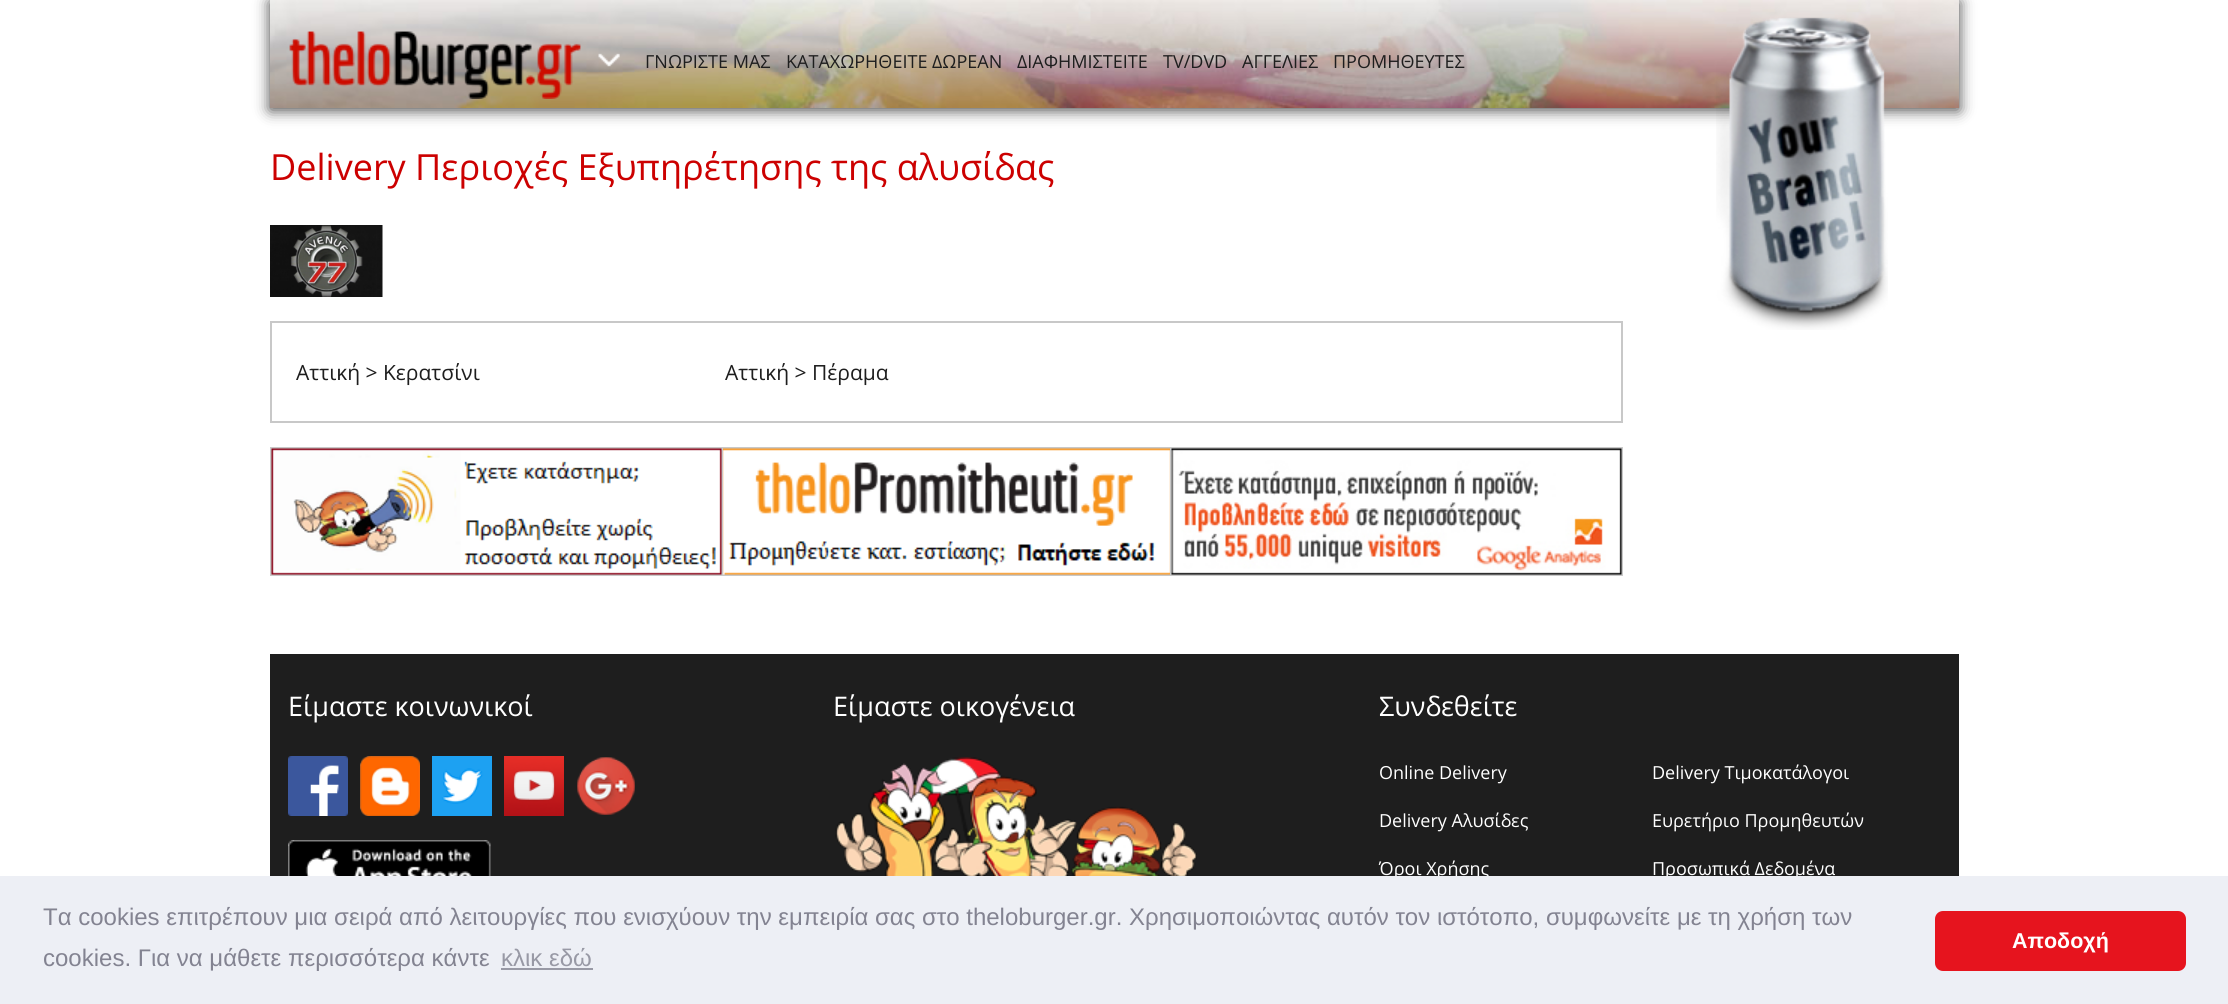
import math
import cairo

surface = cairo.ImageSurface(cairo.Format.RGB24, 2228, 1004)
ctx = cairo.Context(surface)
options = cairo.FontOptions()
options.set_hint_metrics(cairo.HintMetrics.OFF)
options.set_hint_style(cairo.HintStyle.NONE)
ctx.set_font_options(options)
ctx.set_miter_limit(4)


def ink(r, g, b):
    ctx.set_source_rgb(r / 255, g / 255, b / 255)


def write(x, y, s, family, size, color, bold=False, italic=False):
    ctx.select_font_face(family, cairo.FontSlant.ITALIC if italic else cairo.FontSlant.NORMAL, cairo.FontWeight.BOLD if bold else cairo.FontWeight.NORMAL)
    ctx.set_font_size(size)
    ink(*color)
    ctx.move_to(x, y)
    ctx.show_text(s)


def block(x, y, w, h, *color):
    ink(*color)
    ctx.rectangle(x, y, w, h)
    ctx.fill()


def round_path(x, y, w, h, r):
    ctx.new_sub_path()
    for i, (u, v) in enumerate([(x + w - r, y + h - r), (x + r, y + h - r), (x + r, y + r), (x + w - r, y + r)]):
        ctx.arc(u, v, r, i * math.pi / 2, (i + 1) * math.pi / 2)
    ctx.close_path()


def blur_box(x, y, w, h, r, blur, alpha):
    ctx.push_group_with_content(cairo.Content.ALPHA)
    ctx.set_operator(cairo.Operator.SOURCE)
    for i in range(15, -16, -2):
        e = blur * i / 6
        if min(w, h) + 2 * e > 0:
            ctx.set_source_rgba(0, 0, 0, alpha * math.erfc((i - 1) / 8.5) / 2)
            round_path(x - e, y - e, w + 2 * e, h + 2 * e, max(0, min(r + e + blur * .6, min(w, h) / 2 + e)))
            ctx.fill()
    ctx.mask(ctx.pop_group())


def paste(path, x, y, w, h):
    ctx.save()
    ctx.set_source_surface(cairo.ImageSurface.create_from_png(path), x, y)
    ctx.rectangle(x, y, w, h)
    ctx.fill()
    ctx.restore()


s1 = dict(family="Open Sans", size=18, color=(30, 30, 30))
s2 = dict(family="Open Sans", size=36, color=(204, 0, 0))
s3 = dict(family="Open Sans", size=21, color=(30, 30, 30))
s4 = dict(family="Open Sans", size=27, color=(255, 255, 255))
s5 = dict(family="Open Sans", size=18, color=(255, 255, 255))
s6 = dict(family="Liberation Sans", size=24, color=(131, 131, 145))
s7 = dict(family="Liberation Sans", size=24, color=(152, 153, 165))
s8 = dict(family="Liberation Sans", size=21.5, color=(255, 255, 255), bold=True)

ink(255, 255, 255)
ctx.paint()
ink(0, 0, 0)
blur_box(270, 2, 1689, 108, 0, 7.5, 0.75)
paste("pic1.png", 270, 0, 1689, 108)
paste("pic2.png", 289, 31, 292, 68)
paste("pic3.png", 598, 53, 22, 14)
write(645, 68, "ΓΝΩΡΙΣΤΕ ΜΑΣ", **s1)
write(786, 68, "ΚΑΤΑΧΩΡΗΘΕΙΤΕ ΔΩΡΕΑΝ", **s1)
write(1017, 68, "ΔΙΑΦΗΜΙΣΤΕΙΤΕ", **s1)
write(1163, 68, "TV/DVD", **s1)
write(1242, 68, "ΑΓΓΕΛΙΕΣ", **s1)
write(1333, 68, "ΠΡΟΜΗΘΕΥΤΕΣ", **s1)
paste("pic4.png", 1716, 17, 172, 313)
write(270, 180, "Delivery Περιοχές Εξυπηρέτησης της αλυσίδας", **s2)
paste("pic5.png", 270, 225, 113, 72)
ctx.rectangle(271, 322, 1351, 100)
ink(200, 200, 200)
ctx.stroke()
write(296, 380, "Αττική > Κερατσίνι", **s3)
write(725, 380, "Αττική > Πέραμα", **s3)
ctx.rectangle(721, 448, 451, 127)
ink(200, 200, 200)
ctx.stroke()
ctx.rectangle(271, 448, 451, 127)
ctx.stroke()
paste("pic6.png", 271, 448, 451, 127)
ctx.rectangle(1171, 448, 451, 127)
ctx.stroke()
paste("pic7.png", 1171, 448, 451, 127)
paste("pic8.png", 723, 448, 447, 127)
block(270, 654, 1689, 222, 30, 30, 30)
write(288, 716, "Είμαστε κοινωνικοί", **s4)
paste("pic9.png", 288, 756, 60, 60)
paste("pic10.png", 360, 756, 60, 60)
paste("pic11.png", 432, 756, 60, 60)
paste("pic12.png", 504, 756, 60, 60)
paste("pic13.png", 577, 757, 58, 58)
paste("pic14.png", 288, 840, 203, 36)
write(833, 716, "Είμαστε οικογένεια", **s4)
paste("pic15.png", 835, 757, 362, 119)
write(1379, 716, "Συνδεθείτε", **s4)
write(1379, 779, "Online Delivery", **s5)
write(1652, 779, "Delivery Τιμοκατάλογοι", **s5)
write(1379, 827, "Delivery Αλυσίδες", **s5)
write(1652, 827, "Ευρετήριο Προμηθευτών", **s5)
write(1379, 875, "Όροι Χρήσης", **s5)
write(1652, 875, "Προσωπικά Δεδομένα", **s5)
block(0, 876, 2228, 128, 237, 239, 245)
write(43, 925, "Τα cookies επιτρέπουν μια σειρά από λειτουργίες που ενισχύουν την εμπειρία σας στο theloburger.gr. Χρησιμοποιώντας αυτόν τον ιστότοπο, συμφωνείτε με τη χρήση των", **s6)
write(43, 966, "cookies. Για να μάθετε περισσότερα κάντε", **s6)
write(501, 966, "κλικ εδώ", **s7)
block(501, 968, 92, 2, 152, 153, 165)
ink(230, 20, 30)
round_path(1935, 911, 251, 60, 8)
ctx.fill()
write(2012, 948, "Αποδοχή", **s8)
surface.write_to_png("screenshot.png")
